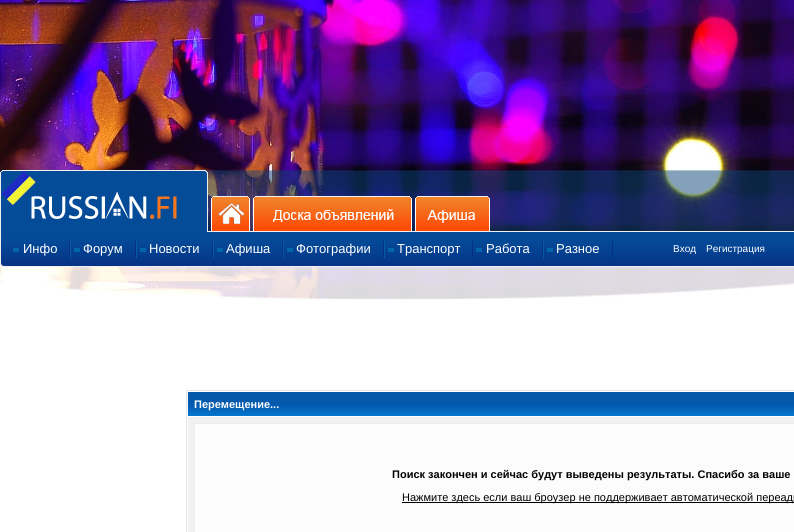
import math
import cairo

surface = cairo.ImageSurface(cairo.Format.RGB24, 794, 532)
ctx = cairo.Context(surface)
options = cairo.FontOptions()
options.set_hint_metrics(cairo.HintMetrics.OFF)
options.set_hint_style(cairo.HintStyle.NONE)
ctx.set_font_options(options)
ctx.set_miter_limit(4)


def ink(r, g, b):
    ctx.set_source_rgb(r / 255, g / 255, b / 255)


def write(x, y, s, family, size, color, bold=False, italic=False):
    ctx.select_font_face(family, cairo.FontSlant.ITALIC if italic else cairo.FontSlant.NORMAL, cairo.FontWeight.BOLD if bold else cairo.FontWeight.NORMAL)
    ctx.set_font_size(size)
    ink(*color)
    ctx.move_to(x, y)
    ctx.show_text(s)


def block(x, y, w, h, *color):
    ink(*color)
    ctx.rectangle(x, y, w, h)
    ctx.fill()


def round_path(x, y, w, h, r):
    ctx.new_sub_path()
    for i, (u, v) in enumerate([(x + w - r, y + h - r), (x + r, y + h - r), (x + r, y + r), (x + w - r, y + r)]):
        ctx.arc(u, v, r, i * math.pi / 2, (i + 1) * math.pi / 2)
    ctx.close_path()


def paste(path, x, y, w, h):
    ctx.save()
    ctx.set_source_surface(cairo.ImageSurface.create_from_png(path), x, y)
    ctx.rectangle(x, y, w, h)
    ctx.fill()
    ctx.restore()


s1 = dict(family="Liberation Sans", size=13, color=(255, 255, 255))
s2 = dict(family="Liberation Sans", size=10, color=(255, 255, 255))
s3 = dict(family="Liberation Sans", size=11, color=(255, 255, 255), bold=True)
s4 = dict(family="Liberation Sans", size=11, color=(0, 0, 0), bold=True)
s5 = dict(family="Liberation Sans", size=11, color=(0, 0, 0))

ink(255, 255, 255)
ctx.paint()
paste("pic1.png", 0, 0, 794, 300)
paste("pic2.png", 0, 170, 208, 61)
paste("pic3.png", 211, 196, 39, 35)
paste("pic4.png", 253, 196, 159, 35)
paste("pic5.png", 415, 196, 75, 35)
paste("pic6.png", 0, 231, 794, 36)
block(13, 248, 6, 4, 1, 101, 172)
block(69, 241, 1, 17, 7, 46, 130)
write(23, 253, "Инфо", **s1)
block(74, 248, 6, 4, 1, 101, 172)
block(135, 241, 1, 17, 7, 46, 130)
block(70, 241, 1, 17, 2, 93, 166)
write(83, 253, "Форум", **s1)
block(140, 248, 6, 4, 1, 101, 172)
block(212, 241, 1, 17, 7, 46, 130)
block(136, 241, 1, 17, 2, 93, 166)
write(149, 253, "Новости", **s1)
block(217, 248, 6, 4, 1, 101, 172)
block(282, 241, 1, 17, 7, 46, 130)
block(213, 241, 1, 17, 2, 93, 166)
write(226, 253, "Афиша", **s1)
block(287, 248, 6, 4, 1, 101, 172)
block(383, 241, 1, 17, 7, 46, 130)
block(283, 241, 1, 17, 2, 93, 166)
write(296, 253, "Фотографии", **s1)
block(388, 248, 6, 4, 1, 101, 172)
block(472, 241, 1, 17, 7, 46, 130)
block(384, 241, 1, 17, 2, 93, 166)
write(397, 253, "Транспорт", **s1)
block(476, 248, 6, 4, 1, 101, 172)
block(542, 241, 1, 17, 7, 46, 130)
write(486, 253, "Работа", **s1)
block(547, 248, 6, 4, 1, 101, 172)
block(612, 241, 1, 17, 7, 46, 130)
block(543, 241, 1, 17, 2, 93, 166)
write(556, 253, "Разное", **s1)
write(673, 252, "Вход", **s2)
write(706, 252, "Регистрация", **s2)
round_path(186.5, 390.5, 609, 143, 0.5)
ink(227, 230, 232)
ctx.set_line_width(1)
ctx.stroke()
paste("pic7.png", 188, 392, 606, 24)
write(194, 408, "Перемещение...", **s3)
block(188, 417, 606, 115, 241, 241, 241)
block(195, 424, 599, 108, 252, 252, 252)
block(194, 423, 600, 1, 238, 238, 238)
block(194, 423, 1, 109, 238, 238, 238)
write(392, 478, "Поиск закончен и сейчас будут выведены результаты. Спасибо за ваше", **s4)
block(402, 502, 392, 1, 0, 0, 0)
write(402, 501, "Нажмите здесь если ваш броузер не поддерживает автоматической переадр", **s5)
surface.write_to_png("screenshot.png")
